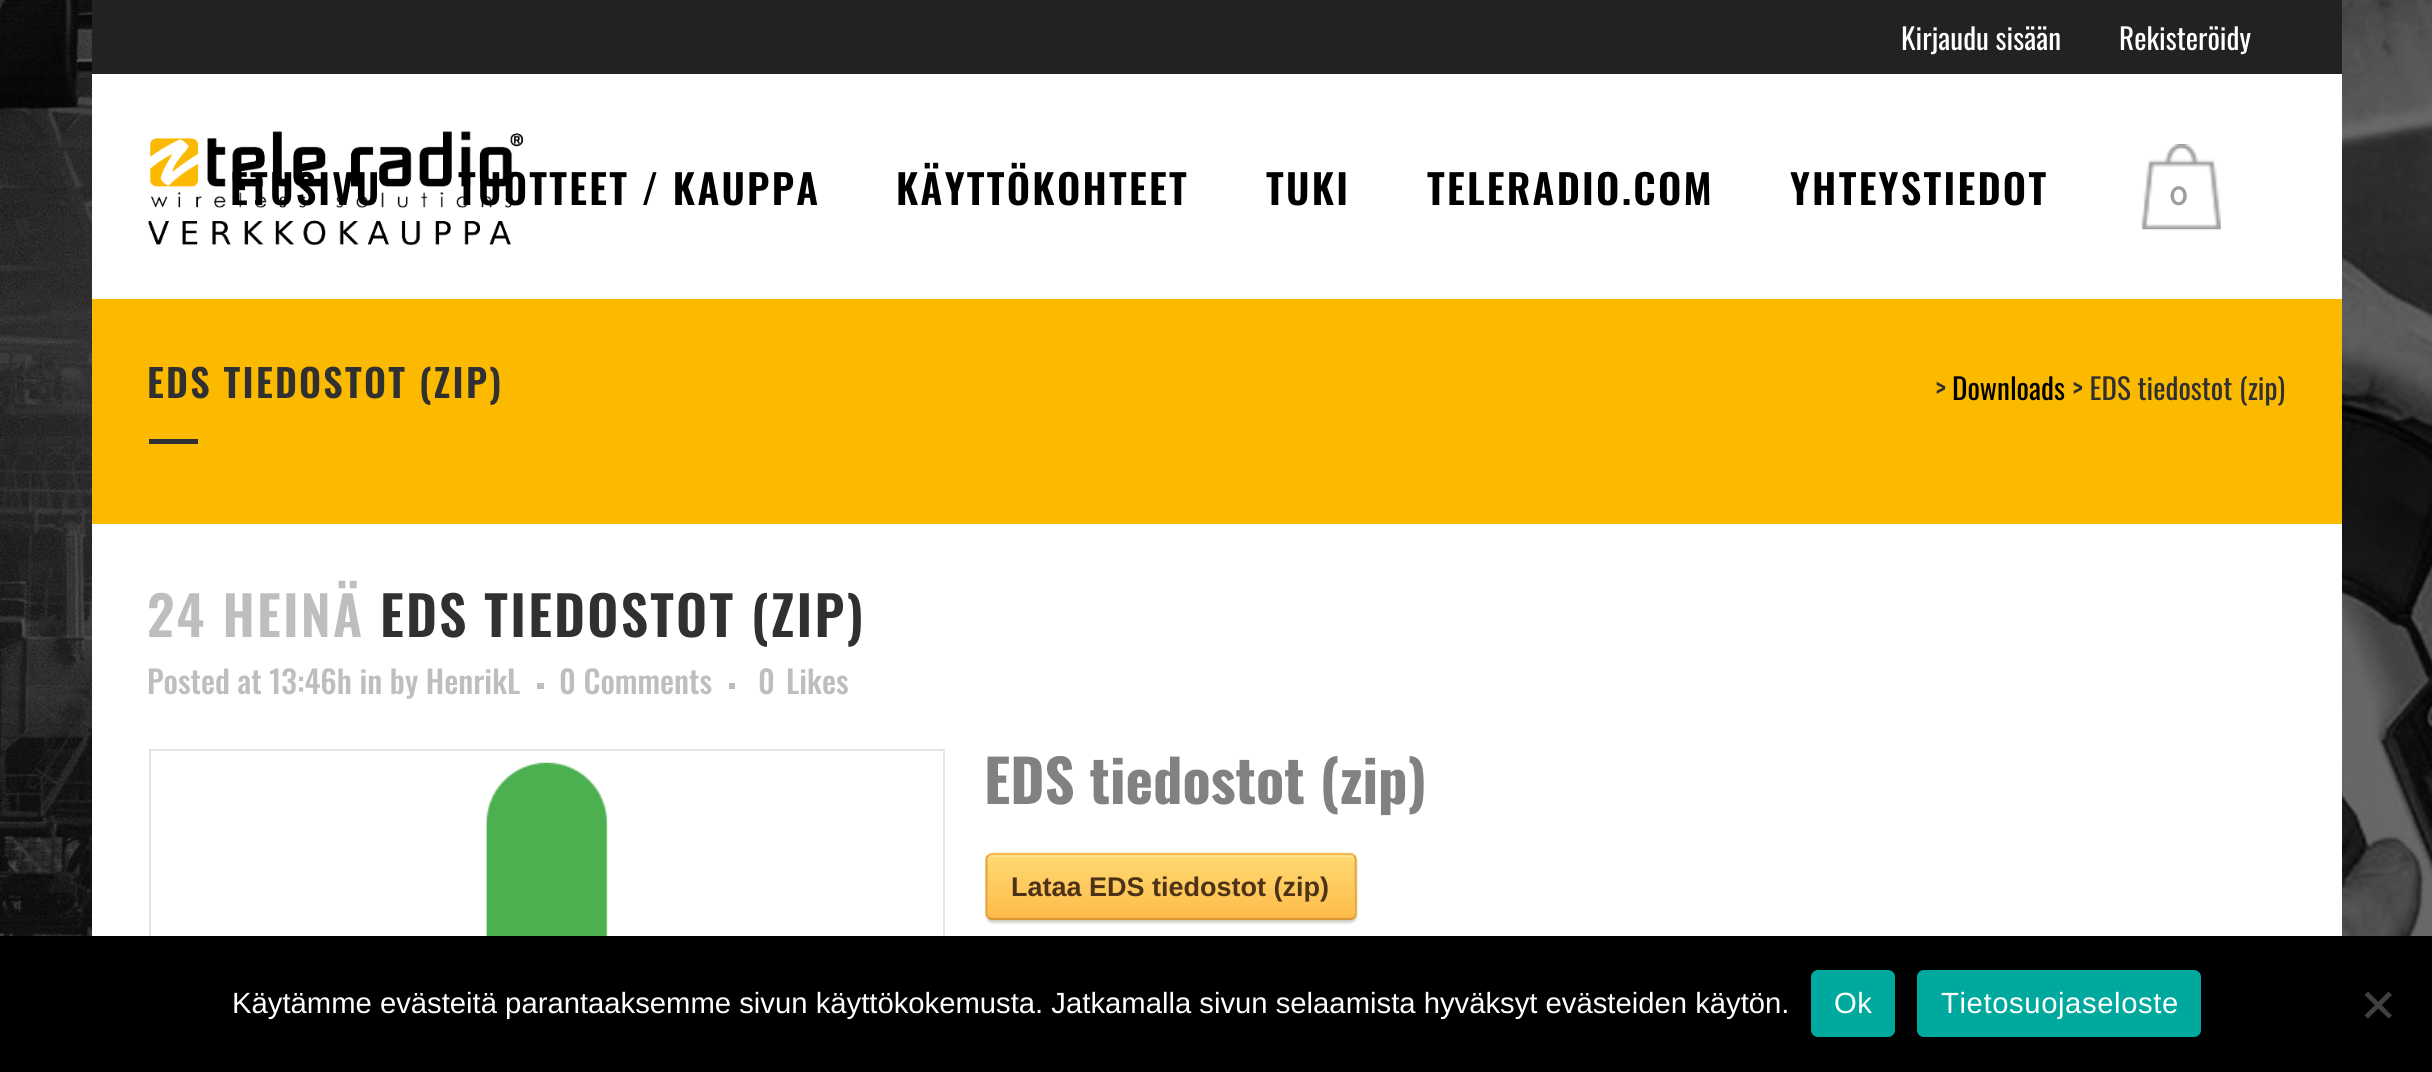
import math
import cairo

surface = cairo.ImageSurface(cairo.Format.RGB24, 2432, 1072)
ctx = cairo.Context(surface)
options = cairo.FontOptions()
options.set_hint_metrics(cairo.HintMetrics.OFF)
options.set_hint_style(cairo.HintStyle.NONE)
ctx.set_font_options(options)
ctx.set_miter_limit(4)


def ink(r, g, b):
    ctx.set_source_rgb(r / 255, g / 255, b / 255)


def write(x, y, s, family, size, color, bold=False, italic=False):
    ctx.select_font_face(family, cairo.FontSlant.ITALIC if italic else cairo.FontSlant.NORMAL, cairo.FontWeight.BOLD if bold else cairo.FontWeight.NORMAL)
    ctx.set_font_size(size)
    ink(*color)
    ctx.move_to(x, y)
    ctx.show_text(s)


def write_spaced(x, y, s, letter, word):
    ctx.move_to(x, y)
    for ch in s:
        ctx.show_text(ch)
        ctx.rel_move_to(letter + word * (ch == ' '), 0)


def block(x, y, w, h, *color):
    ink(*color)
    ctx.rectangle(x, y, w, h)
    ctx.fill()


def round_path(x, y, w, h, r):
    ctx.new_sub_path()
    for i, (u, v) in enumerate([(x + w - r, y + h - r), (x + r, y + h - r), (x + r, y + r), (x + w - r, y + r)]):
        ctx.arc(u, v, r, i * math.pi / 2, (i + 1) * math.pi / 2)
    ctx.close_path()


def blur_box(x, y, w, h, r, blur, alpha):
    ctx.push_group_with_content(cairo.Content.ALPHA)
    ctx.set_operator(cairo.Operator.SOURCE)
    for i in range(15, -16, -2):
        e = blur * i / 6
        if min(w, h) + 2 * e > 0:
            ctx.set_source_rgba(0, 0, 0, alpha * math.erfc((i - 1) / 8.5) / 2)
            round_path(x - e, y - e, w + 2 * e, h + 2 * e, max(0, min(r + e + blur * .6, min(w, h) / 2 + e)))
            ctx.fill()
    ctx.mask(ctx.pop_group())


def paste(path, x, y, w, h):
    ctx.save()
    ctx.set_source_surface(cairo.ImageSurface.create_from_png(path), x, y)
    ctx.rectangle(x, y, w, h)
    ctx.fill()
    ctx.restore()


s1 = dict(family="Oswald", size=29.25, color=(255, 255, 255))
s2 = dict(family="Raleway SemiBold", size=31.5, color=(157, 157, 157))
s3 = dict(family="Oswald", size=29.25, color=(48, 48, 48))
s4 = dict(family="Oswald", size=29.25, color=(0, 0, 0))
s5 = dict(family="Oswald Medium", size=31.5, color=(190, 190, 190))
s6 = dict(family="Oswald", size=58.5, color=(129, 129, 129), bold=True)
s7 = dict(family="Liberation Sans", size=27, color=(77, 50, 23), bold=True)
s8 = dict(family="Liberation Sans", size=29.25, color=(255, 255, 255))

ink(255, 255, 255)
ctx.paint()
paste("pic1.png", 0, 0, 2432, 936)
block(92, 0, 2250, 74, 34, 34, 34)
write(1901, 50, "Kirjaudu sisään", **s1)
write(2119, 50, "Rekisteröidy", **s1)
block(92, 74, 2250, 862, 255, 255, 255)
paste("pic2.png", 148, 131, 376, 115)
ctx.select_font_face("Oswald SemiBold")
ctx.set_font_size(40.5)
ink(0, 0, 0)
write_spaced(230, 205, "ETUSIVU", 2.25, 0)
write_spaced(458, 205, "TUOTTEET / KAUPPA", 2.25, 0)
write_spaced(896, 205, "KÄYTTÖKOHTEET", 2.25, 0)
write_spaced(1266, 205, "TUKI", 2.25, 0)
write_spaced(1427, 205, "TELERADIO.COM", 2.25, 0)
write_spaced(1790, 205, "YHTEYSTIEDOT", 2.25, 0)
paste("pic3.png", 2141, 144, 80, 86)
write(2169, 205, "0", **s2)
block(92, 299, 2250, 225, 251, 185, 0)
ctx.select_font_face("Oswald SemiBold")
ctx.set_font_size(38.25)
ink(48, 48, 48)
write_spaced(147, 398, "EDS TIEDOSTOT (ZIP)", 2.25, 0)
write(1935, 400, ">", **s3)
write(1952, 400, "Downloads", **s4)
write(2072, 400, "> EDS tiedostot (zip)", **s3)
block(149, 439, 49, 5, 48, 48, 48)
ctx.select_font_face("Oswald SemiBold")
ctx.set_font_size(54)
ink(190, 190, 190)
write_spaced(147, 637, "24 HEINÄ", 2.25, 0)
ink(48, 48, 48)
write_spaced(380, 637, "EDS TIEDOSTOT (ZIP)", 2.25, 0)
write(147, 694, "Posted at 13:46h in by HenrikL", **s5)
block(537, 683, 7, 6, 190, 190, 190)
write(559, 694, "0 Comments", **s5)
block(729, 683, 6, 6, 190, 190, 190)
write(758, 694, "0", **s5)
write(786, 694, "Likes", **s5)
ctx.rectangle(150, 750, 794, 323)
ink(232, 228, 227)
ctx.stroke()
paste("pic4.png", 486, 762, 122, 174)
write(984, 804, "EDS tiedostot (zip)", **s6)
ink(211, 211, 211)
blur_box(986, 855, 371, 68, 7, 1, 1)
ctx.save()
round_path(986, 853, 371, 67, 7)
ctx.clip()
gradient = cairo.LinearGradient(988, 855, 988, 918)
gradient.add_color_stop_rgba(0, 0.996, 0.855, 0.443, 1)
gradient.add_color_stop_rgba(1, 0.996, 0.733, 0.29, 1)
ctx.set_source(gradient)
ctx.rectangle(986, 855, 371, 63)
ctx.fill()
ctx.restore()
ink(254, 227, 149)
ctx.new_path()
ctx.move_to(992, 857)
ctx.line_to(1350, 857)
ctx.curve_to(1352, 857, 1354, 859, 1354, 862)
ctx.line_to(1354, 916)
ctx.curve_to(1355, 915, 1355, 914, 1355, 913)
ctx.line_to(1355, 860)
ctx.curve_to(1355, 857, 1353, 855, 1350, 855)
ctx.line_to(993, 855)
ctx.curve_to(990, 855, 988, 857, 988, 860)
ctx.line_to(988, 862)
ctx.curve_to(988, 859, 990, 857, 992, 857)
ctx.close_path()
ctx.fill()
ctx.new_path()
ctx.move_to(988.5, 855.5)
ctx.curve_to(989.5, 854.5, 991, 854, 992, 854)
ctx.line_to(1350, 854)
ctx.curve_to(1351.5, 854, 1353, 854.5, 1354, 855.5)
ink(245, 183, 78)
ctx.set_line_width(2.2)
ctx.stroke()
ctx.new_path()
ctx.move_to(1354, 855.5)
ctx.curve_to(1355, 856.5, 1355.5, 858, 1355.5, 859.5)
ctx.line_to(1355.5, 913.5)
ctx.curve_to(1355.5, 915, 1355, 916.5, 1354, 917.5)
ink(229, 167, 62)
ctx.stroke()
ctx.new_path()
ctx.move_to(1354, 917.5)
ctx.curve_to(1353, 918.5, 1351.5, 919, 1350, 919)
ctx.line_to(992, 919)
ctx.curve_to(991, 919, 989.5, 918.5, 988.5, 917.5)
ink(214, 152, 47)
ctx.stroke()
ctx.new_path()
ctx.move_to(988.5, 917.5)
ctx.curve_to(987, 916.5, 986.5, 915, 986.5, 913.5)
ctx.line_to(986.5, 859.5)
ctx.curve_to(986.5, 858, 987, 856.5, 988.5, 855.5)
ink(229, 167, 62)
ctx.stroke()
write(1011, 896, "Lataa EDS tiedostot (zip)", **s7)
block(0, 936, 2432, 136, 0, 0, 0)
write(232, 1013, "Käytämme evästeitä parantaaksemme sivun käyttökokemusta. Jatkamalla sivun selaamista hyväksyt evästeiden käytön.", **s8)
ink(0, 169, 157)
round_path(1811, 970, 84, 67, 7)
ctx.fill()
ink(255, 255, 255)
write_spaced(1834, 1013, "Ok", 0.6, 0)
ink(0, 169, 157)
round_path(1917, 970, 284, 67, 7)
ctx.fill()
ink(255, 255, 255)
write_spaced(1941, 1013, "Tietosuojaseloste", 0.6, 0)
ink(64, 64, 64)
ctx.new_path()
ctx.move_to(2388.5, 991.5)
ctx.line_to(2392, 995)
ctx.line_to(2368, 1018.5)
ctx.line_to(2364.5, 1015.5)
ctx.close_path()
ctx.fill()
ctx.new_path()
ctx.move_to(2364.5, 995)
ctx.line_to(2368, 991.5)
ctx.line_to(2392, 1015.5)
ctx.line_to(2388.5, 1018.5)
ctx.close_path()
ctx.fill()
surface.write_to_png("screenshot.png")
